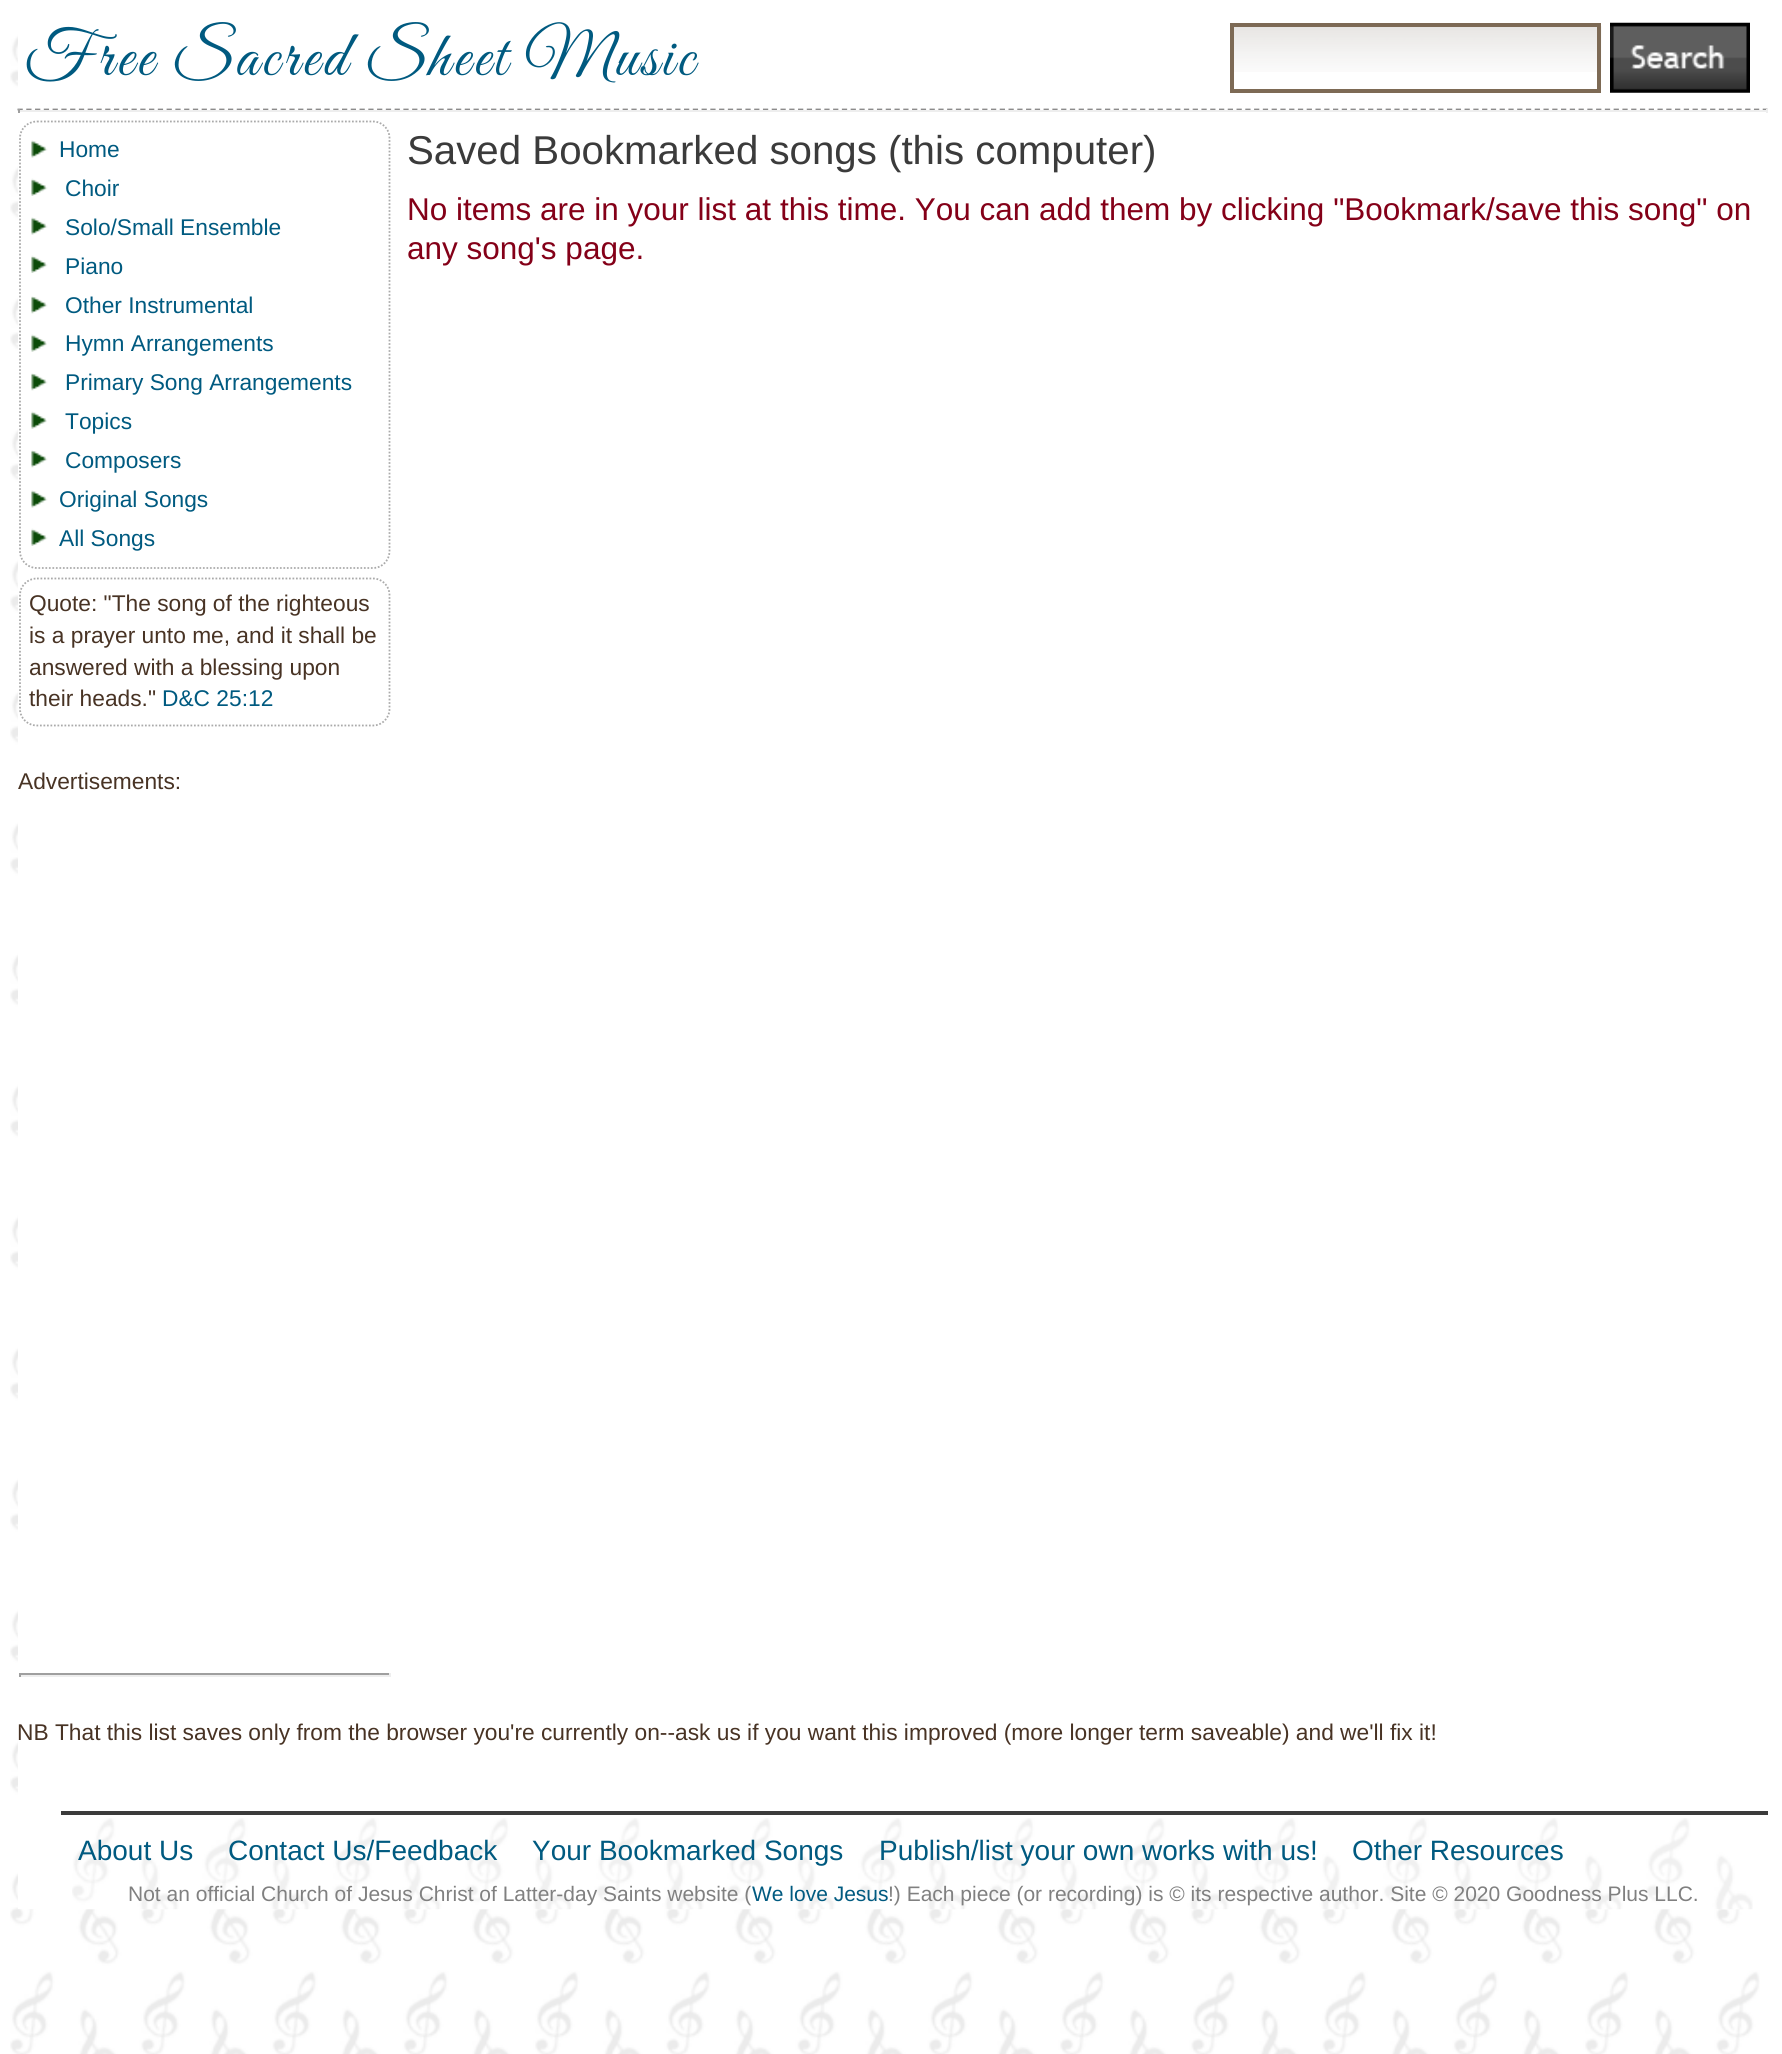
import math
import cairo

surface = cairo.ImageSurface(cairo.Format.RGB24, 1782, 2054)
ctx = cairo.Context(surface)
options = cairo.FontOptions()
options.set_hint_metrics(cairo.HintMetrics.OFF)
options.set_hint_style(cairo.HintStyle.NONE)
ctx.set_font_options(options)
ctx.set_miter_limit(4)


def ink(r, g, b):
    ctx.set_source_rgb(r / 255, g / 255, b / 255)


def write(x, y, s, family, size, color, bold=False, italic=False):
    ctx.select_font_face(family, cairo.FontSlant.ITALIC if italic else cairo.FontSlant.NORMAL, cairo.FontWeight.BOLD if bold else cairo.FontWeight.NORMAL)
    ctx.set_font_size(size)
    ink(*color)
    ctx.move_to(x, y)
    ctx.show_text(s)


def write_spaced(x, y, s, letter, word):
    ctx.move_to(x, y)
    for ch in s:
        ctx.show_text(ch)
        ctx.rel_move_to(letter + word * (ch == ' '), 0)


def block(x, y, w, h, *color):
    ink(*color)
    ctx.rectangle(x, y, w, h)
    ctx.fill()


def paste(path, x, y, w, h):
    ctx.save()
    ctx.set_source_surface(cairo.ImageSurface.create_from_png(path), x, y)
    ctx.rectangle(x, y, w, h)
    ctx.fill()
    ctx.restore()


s1 = dict(family="Liberation Sans", size=40.25, color=(59, 59, 59))
s2 = dict(family="Liberation Sans", size=31.5, color=(132, 0, 24))
s3 = dict(family="Liberation Sans", size=22.75, color=(72, 51, 36))
s4 = dict(family="Liberation Sans", size=22.75, color=(0, 90, 128))
s5 = dict(family="Liberation Sans", size=28, color=(0, 90, 128))
s6 = dict(family="Liberation Sans", size=21, color=(128, 128, 128))
s7 = dict(family="Liberation Sans", size=21, color=(0, 90, 128))

ink(255, 255, 255)
ctx.paint()
paste("pic1.png", 10, 3, 1750, 2051)
block(18, 3, 1742, 1906, 255, 255, 255)
ctx.select_font_face("Great Vibes")
ctx.set_font_size(64.75)
ink(0, 90, 128)
write_spaced(25, 75, "Free Sacred Sheet Music", 3.5, 0)
paste("pic2.png", 1234, 26, 368, 46)
ctx.rectangle(1232, 25, 367, 66)
ink(125, 106, 85)
ctx.set_line_width(4)
ctx.stroke()
paste("pic3.png", 1610, 22, 140, 71)
ctx.new_path()
ctx.move_to(17.5, 109.5)
ctx.line_to(1767.5, 109.5)
ink(140, 139, 139)
ctx.set_line_width(1.8)
ctx.set_dash([5.25, 3.52])
ctx.stroke()
block(1766, 109, 2, 4, 238, 238, 238)
block(18, 110, 1750, 2, 238, 238, 238)
block(18, 109, 2, 4, 159, 159, 159)
write(407, 164, "Saved Bookmarked songs (this computer)", **s1)
write(407, 220, "No items are in your list at this time. You can add them by clicking \"Bookmark/save this song\" on", **s2)
write(407, 259, "any song's page.", **s2)
write(17, 1740, "NB That this list saves only from the browser you're currently on--ask us if you want this improved (more longer term saveable) and we'll fix it!", **s3)
ctx.new_path()
ctx.move_to(37, 121.5)
ctx.line_to(373, 121.5)
ctx.curve_to(382, 121.5, 389.5, 129, 389.5, 138)
ctx.line_to(389.5, 551)
ctx.curve_to(389.5, 560.5, 382, 568, 373, 568)
ctx.line_to(37, 568)
ctx.curve_to(27.5, 568, 20, 560.5, 20, 551)
ctx.line_to(20, 138)
ctx.curve_to(20, 129, 27.5, 121.5, 37, 121.5)
ctx.close_path()
ink(170, 170, 170)
ctx.set_dash([1.75, 1.75])
ctx.stroke()
paste("pic4.png", 31, 140, 17, 18)
write(59, 157, "Home", **s4)
paste("pic5.png", 31, 178, 17, 18)
write(65, 196, "Choir", **s4)
paste("pic6.png", 31, 217, 17, 18)
write(65, 235, "Solo/Small Ensemble", **s4)
paste("pic5.png", 31, 255, 17, 18)
write(65, 274, "Piano", **s4)
paste("pic7.png", 31, 296, 17, 18)
write(65, 313, "Other Instrumental", **s4)
paste("pic8.png", 31, 334, 16, 18)
write(65, 351, "Hymn Arrangements", **s4)
paste("pic7.png", 31, 373, 17, 18)
write(65, 390, "Primary Song Arrangements", **s4)
paste("pic8.png", 31, 411, 16, 18)
write(65, 429, "Topics", **s4)
paste("pic7.png", 31, 450, 17, 18)
write(65, 468, "Composers", **s4)
paste("pic4.png", 31, 490, 17, 18)
write(59, 507, "Original Songs", **s4)
paste("pic5.png", 31, 528, 17, 18)
write(59, 546, "All Songs", **s4)
ctx.new_path()
ctx.move_to(37, 578.5)
ctx.line_to(373, 578.5)
ctx.curve_to(382, 578.5, 389.5, 586, 389.5, 595)
ctx.line_to(389.5, 709)
ctx.curve_to(389.5, 718, 382, 725.5, 373, 725.5)
ctx.line_to(37, 725.5)
ctx.curve_to(27.5, 725.5, 20, 718, 20, 709)
ctx.line_to(20, 595)
ctx.curve_to(20, 586, 27.5, 578.5, 37, 578.5)
ctx.close_path()
ink(170, 170, 170)
ctx.stroke()
write(29, 611, "Quote: \"The song of the righteous", **s3)
write(29, 643, "is a prayer unto me, and it shall be", **s3)
write(29, 675, "answered with a blessing upon", **s3)
write(29, 706, "their heads.\"", **s3)
write(162, 706, "D&C 25:12", **s4)
write(18, 789, "Advertisements:", **s3)
block(19, 1673, 371, 2, 159, 159, 159)
block(389, 1673, 2, 4, 238, 238, 238)
block(19, 1675, 371, 2, 238, 238, 238)
block(19, 1673, 2, 4, 159, 159, 159)
paste("pic9.png", 72, 1818, 1681, 92)
block(61, 1811, 1707, 4, 59, 59, 59)
write(78, 1860, "About Us", **s5)
write(228, 1860, "Contact Us/Feedback", **s5)
write(532, 1860, "Your Bookmarked Songs", **s5)
write(879, 1860, "Publish/list your own works with us!", **s5)
write(1352, 1860, "Other Resources", **s5)
write(128, 1901, "Not an official Church of Jesus Christ of Latter-day Saints website (", **s6)
write(752, 1901, "We love Jesus", **s7)
write(888, 1901, "!) Each piece (or recording) is © its respective author. Site © 2020 Goodness Plus LLC.", **s6)
surface.write_to_png("screenshot.png")
